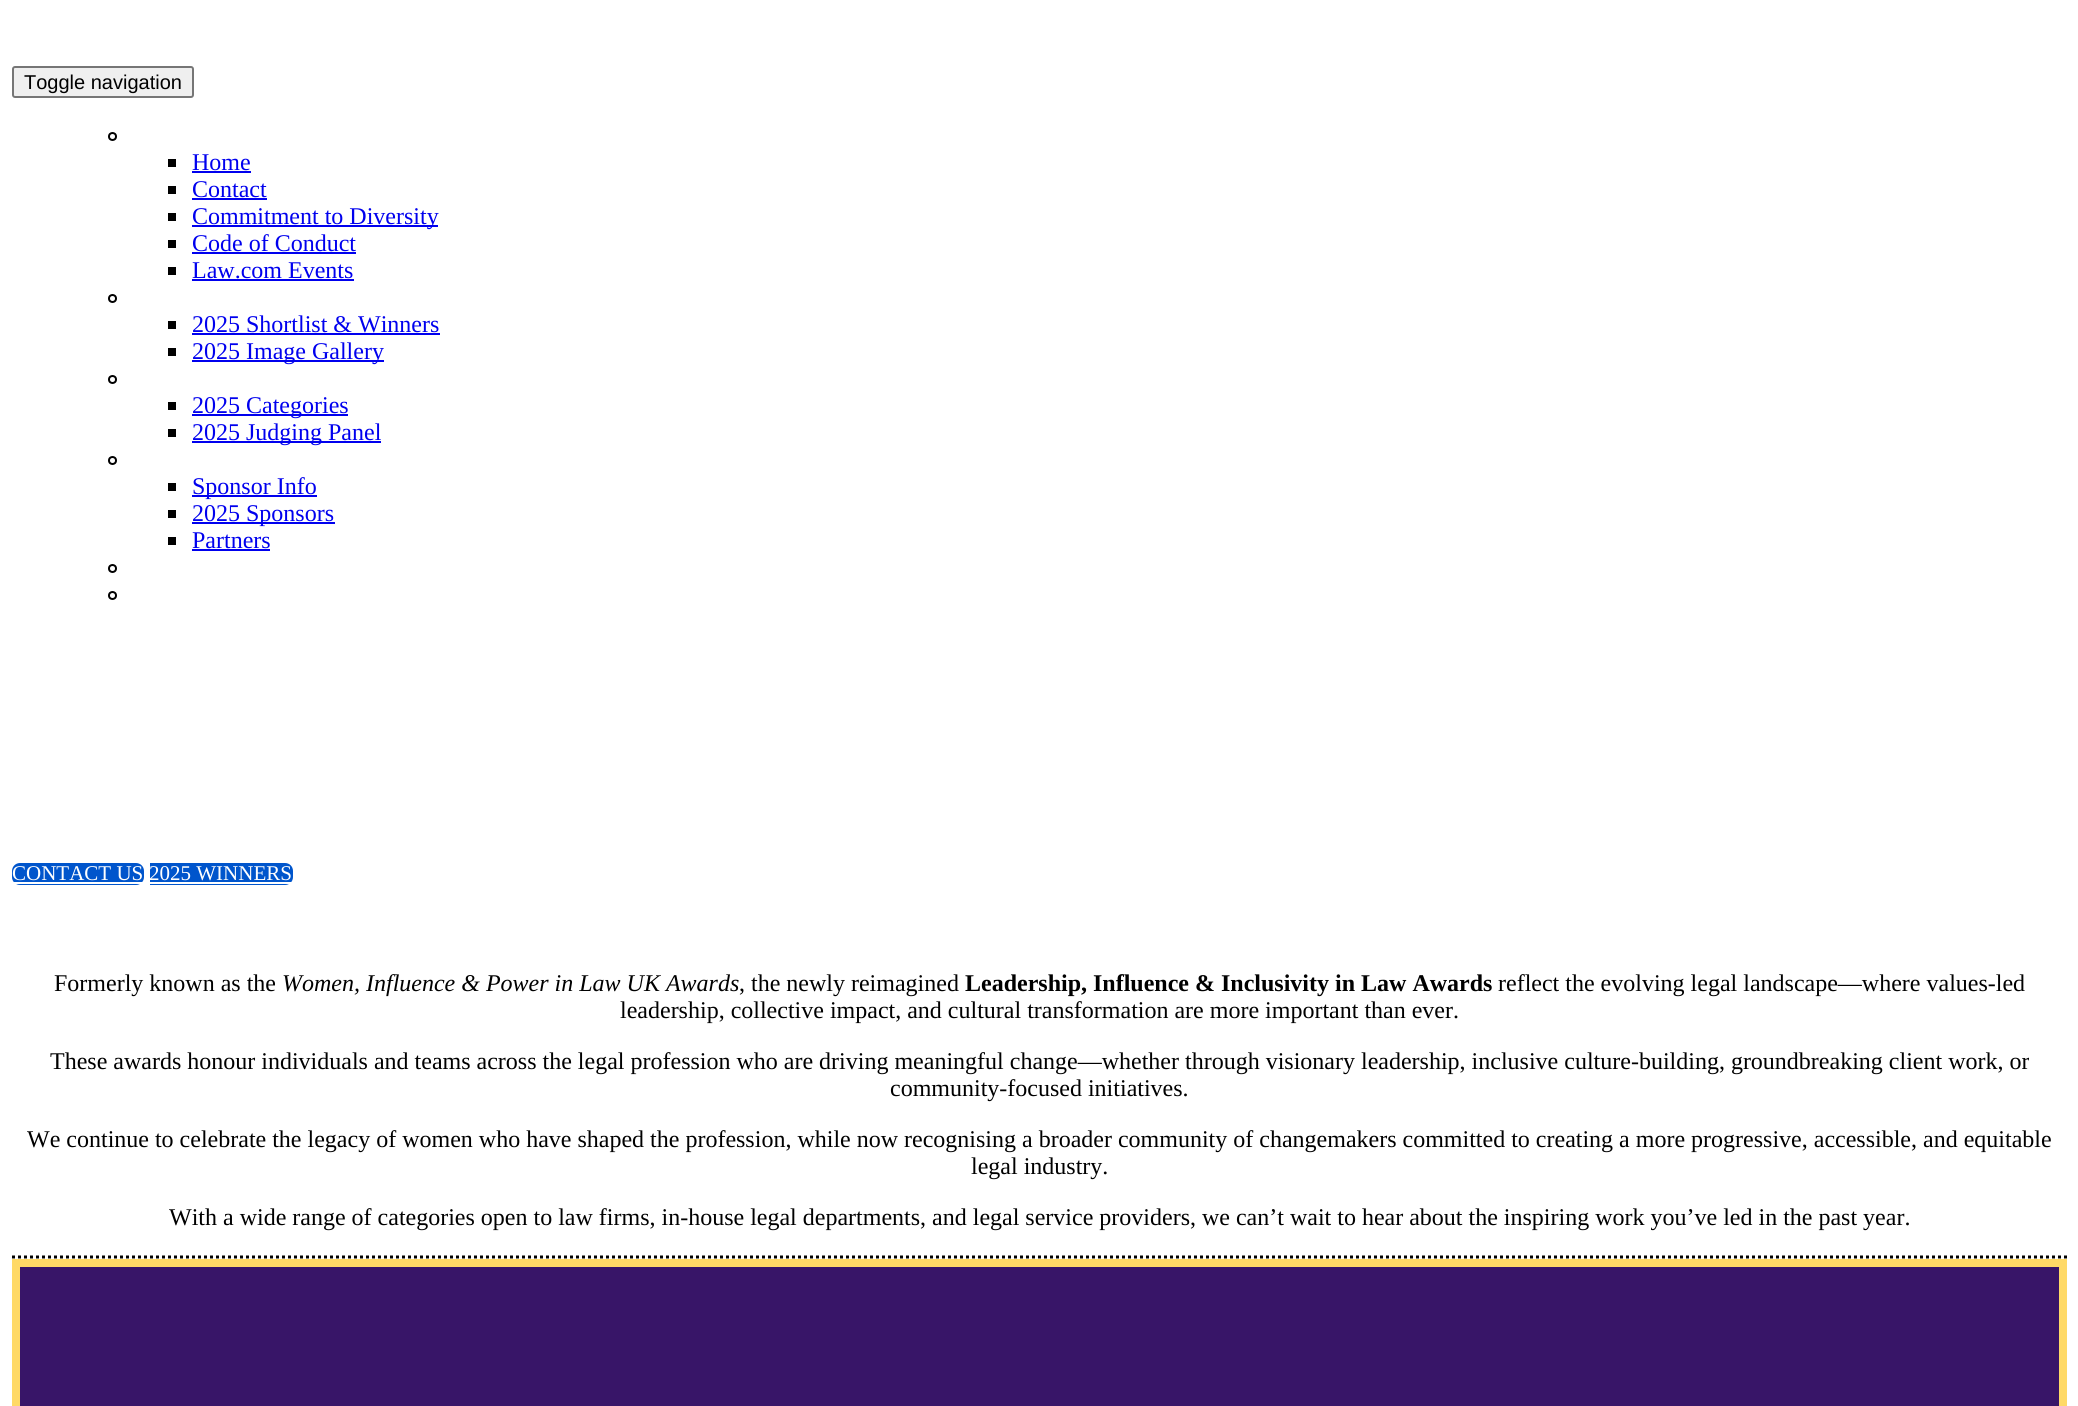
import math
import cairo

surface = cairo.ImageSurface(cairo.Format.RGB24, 2078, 1406)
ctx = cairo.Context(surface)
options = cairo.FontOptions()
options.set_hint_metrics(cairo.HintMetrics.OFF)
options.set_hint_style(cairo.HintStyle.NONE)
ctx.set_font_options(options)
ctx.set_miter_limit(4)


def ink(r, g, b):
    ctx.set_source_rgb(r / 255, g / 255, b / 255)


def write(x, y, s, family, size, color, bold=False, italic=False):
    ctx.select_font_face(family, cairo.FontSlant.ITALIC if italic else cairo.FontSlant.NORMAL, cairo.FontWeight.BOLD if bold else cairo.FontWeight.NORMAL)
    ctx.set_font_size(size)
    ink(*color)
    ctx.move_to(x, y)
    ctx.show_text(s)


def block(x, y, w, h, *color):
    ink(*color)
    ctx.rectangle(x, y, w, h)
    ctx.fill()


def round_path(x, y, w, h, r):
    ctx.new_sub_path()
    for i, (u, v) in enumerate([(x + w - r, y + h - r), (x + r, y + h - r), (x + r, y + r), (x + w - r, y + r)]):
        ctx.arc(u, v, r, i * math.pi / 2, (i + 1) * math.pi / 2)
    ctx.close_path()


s1 = dict(family="Liberation Sans", size=20, color=(0, 0, 0))
s2 = dict(family="Liberation Serif", size=24, color=(0, 0, 238))
s3 = dict(family="Liberation Serif", size=21, color=(255, 255, 255))
s4 = dict(family="Liberation Serif", size=24, color=(0, 0, 0))
s5 = dict(family="Liberation Serif", size=24, color=(0, 0, 0), italic=True)
s6 = dict(family="Liberation Serif", size=24, color=(0, 0, 0), bold=True)

ink(255, 255, 255)
ctx.paint()
ink(239, 239, 239)
round_path(13, 67, 180, 30, 2)
ctx.fill_preserve()
ink(118, 118, 118)
ctx.stroke()
write(24, 89, "Toggle navigation", **s1)
ctx.new_path()
ctx.arc(112.5, 136.5, 3.5, 0, 2 * math.pi)
ctx.stroke()
block(168, 159, 8, 8, 0, 0, 0)
write(192, 170, "Home", **s2)
block(192, 171, 59, 2, 0, 0, 238)
block(168, 186, 8, 8, 0, 0, 0)
write(192, 197, "Contact", **s2)
block(192, 198, 75, 2, 0, 0, 238)
block(168, 213, 8, 8, 0, 0, 0)
block(192, 225, 246, 2, 0, 0, 238)
write(192, 224, "Commitment to Diversity", **s2)
block(168, 240, 8, 8, 0, 0, 0)
write(192, 251, "Code of Conduct", **s2)
block(192, 252, 164, 2, 0, 0, 238)
block(168, 267, 8, 8, 0, 0, 0)
write(192, 278, "Law.com Events", **s2)
block(192, 279, 162, 2, 0, 0, 238)
ctx.new_path()
ctx.arc(112.5, 298.5, 3.5, 0, 2 * math.pi)
ink(0, 0, 0)
ctx.stroke()
block(168, 321, 8, 8, 0, 0, 0)
write(192, 332, "2025 Shortlist & Winners", **s2)
block(192, 333, 248, 2, 0, 0, 238)
block(168, 348, 8, 8, 0, 0, 0)
block(192, 360, 192, 2, 0, 0, 238)
write(192, 359, "2025 Image Gallery", **s2)
ctx.new_path()
ctx.arc(112.5, 379.5, 3.5, 0, 2 * math.pi)
ink(0, 0, 0)
ctx.stroke()
block(168, 402, 8, 8, 0, 0, 0)
block(192, 414, 156, 2, 0, 0, 238)
write(192, 413, "2025 Categories", **s2)
block(168, 429, 8, 8, 0, 0, 0)
block(192, 441, 189, 2, 0, 0, 238)
write(192, 440, "2025 Judging Panel", **s2)
ctx.new_path()
ctx.arc(112.5, 460.5, 3.5, 0, 2 * math.pi)
ink(0, 0, 0)
ctx.stroke()
block(168, 483, 8, 8, 0, 0, 0)
block(192, 495, 125, 2, 0, 0, 238)
write(192, 494, "Sponsor Info", **s2)
block(168, 510, 8, 8, 0, 0, 0)
block(192, 522, 143, 2, 0, 0, 238)
write(192, 521, "2025 Sponsors", **s2)
block(168, 537, 8, 8, 0, 0, 0)
write(192, 548, "Partners", **s2)
block(192, 549, 78, 2, 0, 0, 238)
ctx.new_path()
ctx.arc(112.5, 568.5, 3.5, 0, 2 * math.pi)
ink(0, 0, 0)
ctx.stroke()
ctx.arc(112.5, 595.5, 3.5, 0, 2 * math.pi)
ctx.stroke()
ink(0, 85, 204)
round_path(12, 863, 132, 22, 8)
ctx.fill()
write(12, 880, "CONTACT US", **s3)
block(12, 882, 132, 2, 255, 255, 255)
ink(0, 85, 204)
ctx.new_path()
ctx.move_to(150, 863)
ctx.line_to(285, 863)
ctx.curve_to(289.5, 863, 293, 866.5, 293, 871)
ctx.line_to(293, 877)
ctx.curve_to(293, 881.5, 289.5, 885, 285, 885)
ctx.line_to(150, 885)
ctx.close_path()
ctx.fill()
write(149, 880, "2025 WINNERS", **s3)
block(150, 882, 143, 2, 255, 255, 255)
write(54, 991, "Formerly known as the", **s4)
write(282, 991, "Women, Influence & Power in Law UK Awards", **s5)
write(739, 991, ", the newly reimagined", **s4)
write(965, 991, "Leadership, Influence & Inclusivity in Law Awards", **s6)
write(1498, 991, "reflect the evolving legal landscape—where values-led", **s4)
write(620, 1018, "leadership, collective impact, and cultural transformation are more important than ever.", **s4)
write(50, 1069, "These awards honour individuals and teams across the legal profession who are driving meaningful change—whether through visionary leadership, inclusive culture-building, groundbreaking client work, or", **s4)
write(890, 1096, "community-focused initiatives.", **s4)
write(27, 1147, "We continue to celebrate the legacy of women who have shaped the profession, while now recognising a broader community of changemakers committed to creating a more progressive, accessible, and equitable", **s4)
write(971, 1174, "legal industry.", **s4)
write(169, 1225, "With a wide range of categories open to law firms, in-house legal departments, and legal service providers, we can’t wait to hear about the inspiring work you’ve led in the past year.", **s4)
ctx.new_path()
ctx.move_to(12, 1257)
ctx.line_to(2067, 1257)
ctx.set_line_width(3)
ctx.set_dash([3, 3])
ctx.stroke()
ink(56, 21, 104)
ctx.rectangle(16, 1263, 2047, 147)
ctx.fill_preserve()
ink(255, 217, 102)
ctx.set_line_width(8)
ctx.set_dash([])
ctx.stroke()
surface.write_to_png("screenshot.png")
